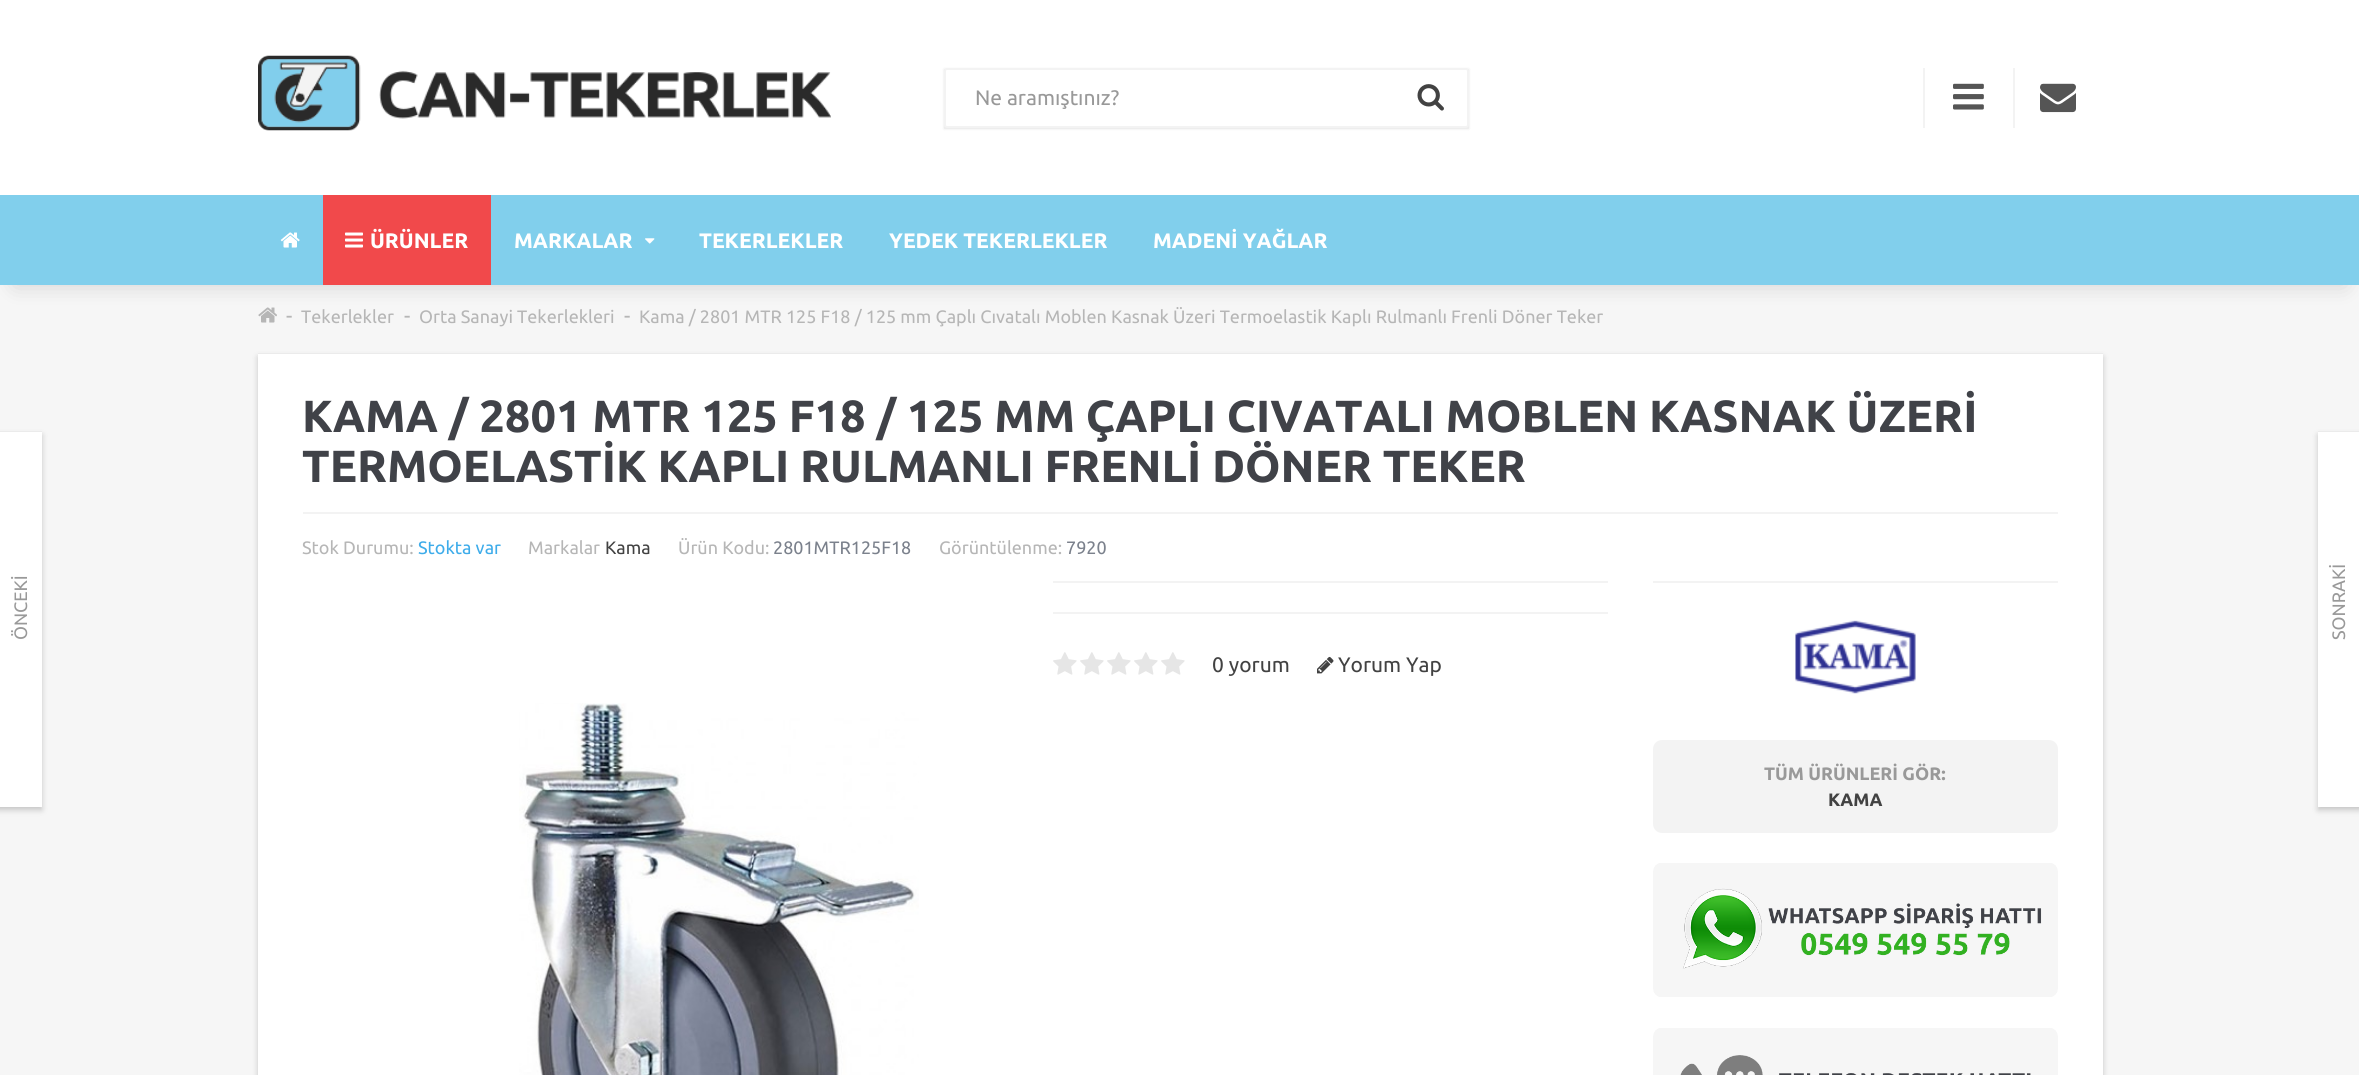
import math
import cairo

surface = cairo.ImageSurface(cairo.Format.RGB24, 2359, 1075)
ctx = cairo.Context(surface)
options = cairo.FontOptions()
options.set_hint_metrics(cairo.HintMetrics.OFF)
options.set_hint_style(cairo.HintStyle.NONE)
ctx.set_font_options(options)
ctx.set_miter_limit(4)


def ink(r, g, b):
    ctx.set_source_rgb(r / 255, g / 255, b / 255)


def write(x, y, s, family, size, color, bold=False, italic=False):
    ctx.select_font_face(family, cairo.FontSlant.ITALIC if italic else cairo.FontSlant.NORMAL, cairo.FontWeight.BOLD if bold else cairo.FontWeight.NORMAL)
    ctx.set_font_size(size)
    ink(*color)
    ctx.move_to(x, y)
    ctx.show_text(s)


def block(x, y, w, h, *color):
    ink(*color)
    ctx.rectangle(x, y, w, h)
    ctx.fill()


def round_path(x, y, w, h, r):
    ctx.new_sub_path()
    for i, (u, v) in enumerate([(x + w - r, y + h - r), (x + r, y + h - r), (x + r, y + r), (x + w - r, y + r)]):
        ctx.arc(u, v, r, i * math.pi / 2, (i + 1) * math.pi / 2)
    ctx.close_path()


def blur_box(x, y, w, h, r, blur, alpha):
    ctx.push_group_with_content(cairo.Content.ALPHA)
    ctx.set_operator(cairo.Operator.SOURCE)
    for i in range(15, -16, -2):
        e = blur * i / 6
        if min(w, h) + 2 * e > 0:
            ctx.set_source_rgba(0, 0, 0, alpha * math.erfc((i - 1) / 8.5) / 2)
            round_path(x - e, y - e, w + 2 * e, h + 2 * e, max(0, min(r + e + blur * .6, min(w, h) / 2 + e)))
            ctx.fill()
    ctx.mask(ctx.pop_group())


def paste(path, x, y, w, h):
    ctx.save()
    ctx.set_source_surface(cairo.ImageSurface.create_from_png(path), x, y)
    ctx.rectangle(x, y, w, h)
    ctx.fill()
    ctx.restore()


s1 = dict(family="Ubuntu", size=21, color=(153, 153, 153))
s2 = dict(family="Ubuntu", size=21, color=(255, 255, 255), bold=True)
s3 = dict(family="Ubuntu", size=21, color=(182, 182, 182))
s4 = dict(family="Ubuntu", size=18, color=(182, 182, 182))
s5 = dict(family="Ubuntu", size=18, color=(153, 153, 153))
s6 = dict(family="Ubuntu", size=45, color=(64, 66, 72), bold=True)
s7 = dict(family="Ubuntu", size=18, color=(62, 172, 234))
s8 = dict(family="Ubuntu", size=18, color=(66, 66, 66))
s9 = dict(family="Ubuntu", size=18, color=(123, 129, 140))
s10 = dict(family="Ubuntu", size=21, color=(66, 66, 66))
s11 = dict(family="Ubuntu", size=18, color=(153, 153, 153), bold=True)
s12 = dict(family="Ubuntu", size=18, color=(66, 66, 66), bold=True)

ink(246, 246, 246)
ctx.paint()
block(0, 0, 2359, 195, 255, 255, 255)
paste("pic1.png", 258, 55, 573, 76)
ink(0, 0, 0)
blur_box(944, 69, 525, 60, 0, 1, 0.1)
ink(255, 255, 255)
round_path(945, 69, 523, 58, 2)
ctx.fill_preserve()
ink(243, 243, 243)
ctx.stroke()
write(975, 105, "Ne aramıştınız?", **s1)
paste("pic2.png", 1417, 84, 27, 27)
block(1923, 68, 2, 60, 243, 243, 243)
paste("pic3.png", 1953, 83, 31, 27)
block(2013, 68, 2, 60, 243, 243, 243)
paste("pic4.png", 2040, 83, 36, 30)
ink(0, 0, 0)
blur_box(15, 225, 2330, 60, 0, 11, 0.15)
block(0, 195, 2359, 90, 129, 207, 236)
paste("pic5.png", 280, 232, 20, 16)
block(323, 195, 168, 90, 241, 73, 75)
paste("pic6.png", 345, 232, 18, 16)
write(370, 248, "ÜRÜNLER", **s2)
write(514, 248, "MARKALAR", **s2)
paste("pic7.png", 645, 238, 10, 6)
write(699, 248, "TEKERLEKLER", **s2)
write(889, 248, "YEDEK TEKERLEKLER", **s2)
write(1153, 248, "MADENİ YAĞLAR", **s2)
paste("pic8.png", 258, 307, 19, 16)
write(286, 323, "-", **s3)
write(301, 323, "Tekerlekler", **s4)
write(404, 323, "-", **s3)
write(419, 323, "Orta Sanayi Tekerlekleri", **s4)
write(624, 323, "-", **s3)
write(639, 323, "Kama / 2801 MTR 125 F18 / 125 mm Çaplı Cıvatalı Moblen Kasnak Üzeri Termoelastik Kaplı Rulmanlı Frenli Döner Teker", **s4)
block(0, 431, 42, 1, 241, 241, 241)
ink(0, 0, 0)
blur_box(-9, 435, 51, 375, 0, 3, 0.2)
block(0, 432, 42, 375, 255, 255, 255)
ctx.save()
ctx.translate(27, 640)
ctx.rotate(-90 * math.pi / 180)
write(0, 0, "ÖNCEKİ", **s5)
ctx.restore()
block(258, 353, 1845, 1, 241, 241, 241)
ink(0, 0, 0)
blur_box(258, 357, 1845, 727, 0, 3, 0.2)
block(258, 354, 1845, 721, 255, 255, 255)
write(302, 432, "KAMA / 2801 MTR 125 F18 / 125 MM ÇAPLI CIVATALI MOBLEN KASNAK ÜZERİ", **s6)
write(302, 482, "TERMOELASTİK KAPLI RULMANLI FRENLİ DÖNER TEKER", **s6)
block(303, 512, 1755, 2, 243, 243, 243)
write(302, 554, "Stok Durumu:", **s4)
write(418, 554, "Stokta var", **s7)
write(528, 554, "Markalar", **s4)
write(605, 554, "Kama", **s8)
write(678, 554, "Ürün Kodu:", **s4)
write(773, 554, "2801MTR125F18", **s9)
write(939, 554, "Görüntülenme:", **s4)
write(1066, 554, "7920", **s9)
block(1053, 581, 555, 2, 243, 243, 243)
block(1053, 612, 555, 2, 243, 243, 243)
paste("pic9.png", 1053, 652, 24, 23)
paste("pic9.png", 1080, 652, 24, 23)
paste("pic9.png", 1107, 652, 24, 23)
paste("pic9.png", 1134, 652, 24, 23)
paste("pic9.png", 1161, 652, 24, 23)
write(1212, 672, "0 yorum", **s10)
paste("pic10.png", 1317, 656, 17, 18)
write(1338, 672, "Yorum Yap", **s10)
paste("pic11.png", 519, 703, 400, 372)
block(1653, 581, 405, 2, 243, 243, 243)
paste("pic12.png", 1795, 620, 121, 74)
round_path(1654.5, 741.5, 402, 90, 7.5)
ctx.fill_preserve()
ctx.set_line_width(3)
ctx.stroke()
write(1764, 780, "TÜM ÜRÜNLERİ GÖR:", **s11)
write(1828, 806, "KAMA", **s12)
paste("pic13.png", 1653, 863, 405, 134)
paste("pic14.png", 1653, 1028, 405, 47)
ink(241, 241, 241)
ctx.new_path()
ctx.move_to(2318, 431)
ctx.line_to(2318, 432)
ctx.line_to(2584, 432)
ctx.line_to(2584, 806)
ctx.line_to(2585, 806)
ctx.line_to(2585, 431)
ctx.close_path()
ctx.fill()
ink(0, 0, 0)
blur_box(2318, 435, 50, 375, 0, 3, 0.2)
block(2318, 432, 41, 375, 255, 255, 255)
ctx.save()
ctx.translate(2345, 640)
ctx.rotate(-90 * math.pi / 180)
write(0, 0, "SONRAKİ", **s5)
ctx.restore()
surface.write_to_png("screenshot.png")
